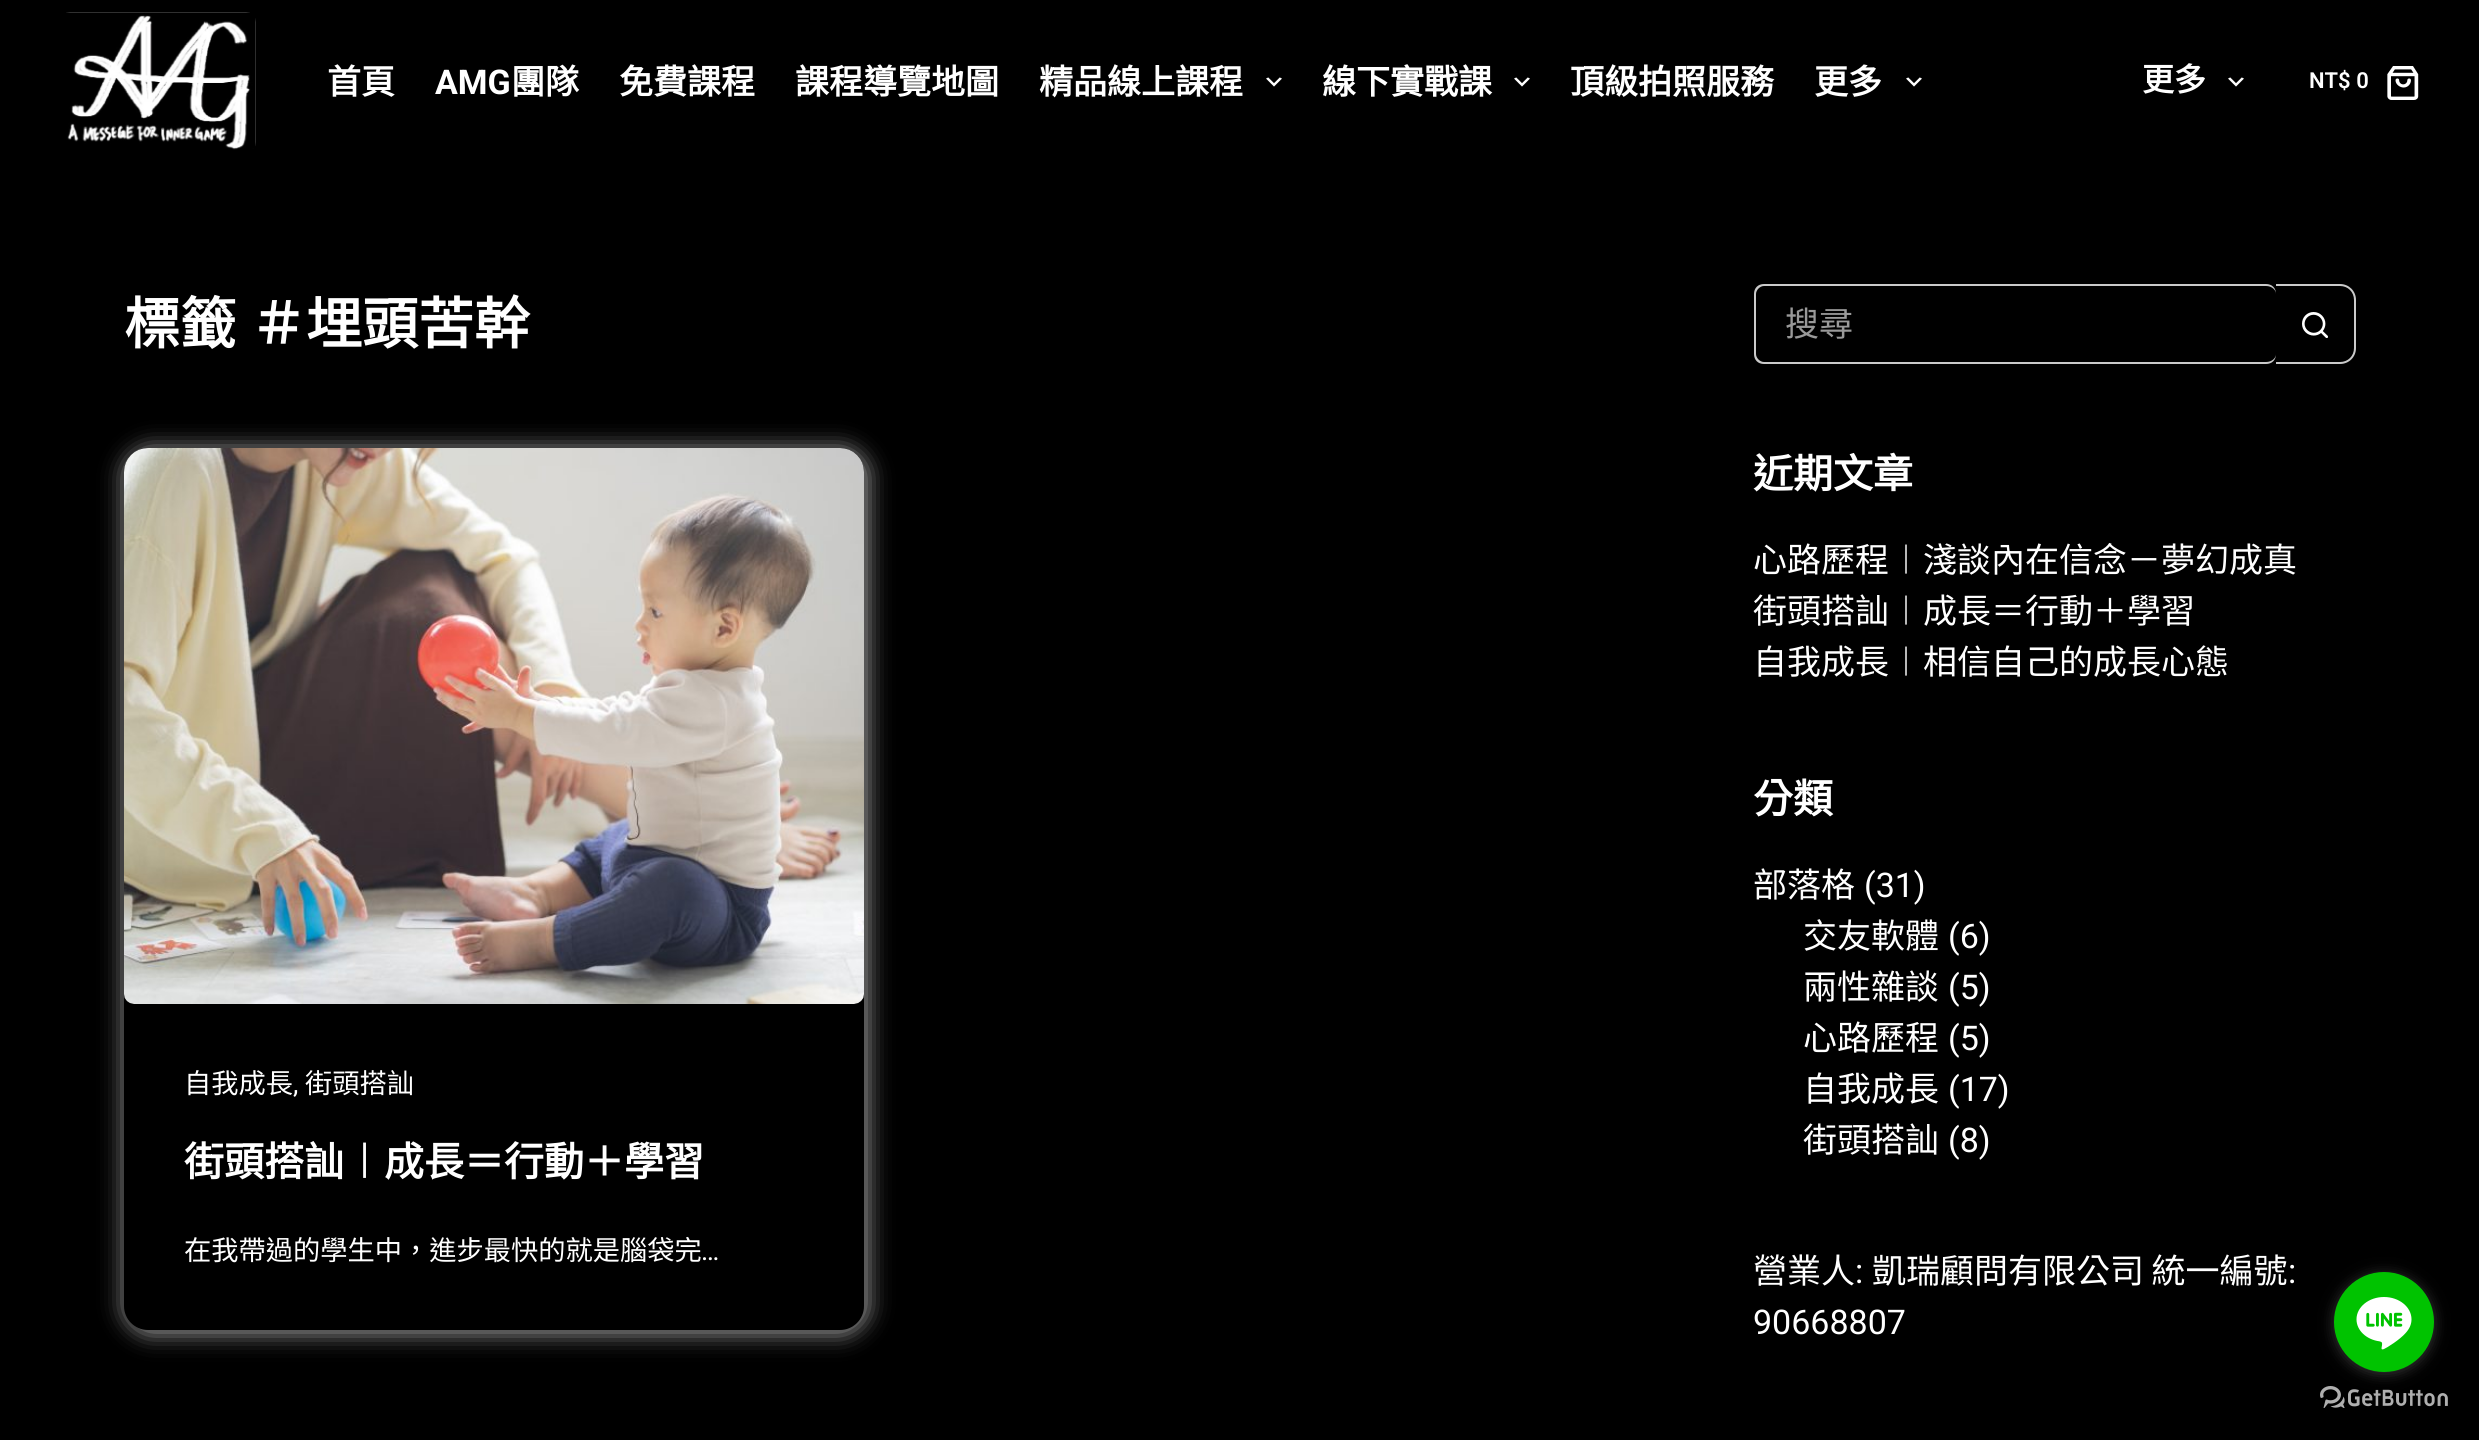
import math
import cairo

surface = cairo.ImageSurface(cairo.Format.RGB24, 2479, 1440)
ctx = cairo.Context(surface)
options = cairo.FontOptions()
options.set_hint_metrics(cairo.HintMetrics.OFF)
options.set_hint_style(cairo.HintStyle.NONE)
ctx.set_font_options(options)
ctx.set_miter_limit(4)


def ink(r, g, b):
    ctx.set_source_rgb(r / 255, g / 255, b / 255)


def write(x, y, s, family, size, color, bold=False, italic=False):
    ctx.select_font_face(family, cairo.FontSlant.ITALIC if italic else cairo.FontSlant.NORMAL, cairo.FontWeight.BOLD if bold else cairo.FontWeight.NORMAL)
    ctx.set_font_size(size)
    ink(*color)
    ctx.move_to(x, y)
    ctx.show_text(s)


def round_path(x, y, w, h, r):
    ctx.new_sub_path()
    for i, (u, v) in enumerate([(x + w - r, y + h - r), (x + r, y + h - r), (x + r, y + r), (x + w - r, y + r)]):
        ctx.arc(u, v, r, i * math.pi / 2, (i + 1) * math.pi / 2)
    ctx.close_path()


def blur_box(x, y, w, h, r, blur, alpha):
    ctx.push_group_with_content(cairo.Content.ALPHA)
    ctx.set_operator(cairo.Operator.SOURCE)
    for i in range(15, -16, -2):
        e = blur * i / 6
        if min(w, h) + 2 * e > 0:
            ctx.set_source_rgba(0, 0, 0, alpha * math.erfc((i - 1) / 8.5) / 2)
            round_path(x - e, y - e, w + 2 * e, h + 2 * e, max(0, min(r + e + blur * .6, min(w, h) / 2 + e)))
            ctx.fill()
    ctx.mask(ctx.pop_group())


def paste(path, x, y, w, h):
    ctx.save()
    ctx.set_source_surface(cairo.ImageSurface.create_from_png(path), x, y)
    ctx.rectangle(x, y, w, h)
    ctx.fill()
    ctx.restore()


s1 = dict(family="Noto Sans CJK TC", size=34, color=(255, 255, 255), bold=True)
s2 = dict(family="Roboto", size=34, color=(255, 255, 255), bold=True)
s3 = dict(family="Noto Sans CJK TC", size=32, color=(255, 255, 255), bold=True)
s4 = dict(family="Roboto SemiBold", size=22, color=(255, 255, 255))
s5 = dict(family="Noto Sans CJK TC", size=56, color=(255, 255, 255), bold=True)
s6 = dict(family="Noto Sans CJK TC", size=27.25, color=(255, 255, 255))
s7 = dict(family="Roboto", size=27.25, color=(255, 255, 255))
s8 = dict(family="Noto Sans CJK TC", size=40, color=(255, 255, 255), bold=True)
s9 = dict(family="Noto Sans CJK TC", size=34, color=(153, 153, 153))
s10 = dict(family="Noto Sans CJK TC", size=34, color=(255, 255, 255))
s11 = dict(family="Roboto", size=34, color=(255, 255, 255))

ink(0, 0, 0)
ctx.paint()
paste("pic1.png", 66, 12, 190, 138)
write(327, 94, "首頁", **s1)
write(435, 94, "AMG", **s2)
write(511, 94, "團隊", **s1)
write(619, 94, "免費課程", **s1)
write(795, 94, "課程導覽地圖", **s1)
write(1039, 94, "精品線上課程", **s1)
paste("pic2.png", 1266, 77, 16, 10)
write(1322, 94, "線下實戰課", **s1)
paste("pic2.png", 1514, 77, 16, 10)
write(1570, 94, "頂級拍照服務", **s1)
write(1814, 94, "更多", **s1)
paste("pic2.png", 1906, 77, 16, 10)
write(2142, 91, "更多", **s3)
paste("pic2.png", 2228, 77, 16, 10)
write(2309, 88, "NT$ 0", **s4)
paste("pic3.png", 2387, 66, 32, 34)
write(124, 344, "標籤", **s5)
write(250, 344, "＃埋頭苦幹", **s5)
ink(255, 255, 255)
blur_box(126, 450, 740, 882, 24, 12, 0.69)
ink(0, 0, 0)
round_path(124, 448, 740, 882, 24)
ctx.fill()
paste("pic4.png", 124, 448, 740, 556)
write(184, 1093, "自我成長", **s6)
write(293, 1093, ",", **s7)
write(305, 1093, "街頭搭訕", **s6)
write(184, 1176, "街頭搭訕︱成長＝行動＋學習", **s8)
write(184, 1260, "在我帶過的學生中，進步最快的就是腦袋完", **s6)
write(701, 1260, "…", **s7)
ink(202, 202, 202)
ctx.set_fill_rule(cairo.FillRule.EVEN_ODD)
ctx.new_path()
ctx.move_to(1764, 284)
ctx.line_to(2266, 284)
ctx.curve_to(2272, 284, 2276, 288, 2276, 294)
ctx.line_to(2276, 354)
ctx.curve_to(2276, 360, 2272, 364, 2266, 364)
ctx.line_to(1764, 364)
ctx.curve_to(1758, 364, 1754, 360, 1754, 354)
ctx.line_to(1754, 294)
ctx.curve_to(1754, 288, 1758, 284, 1764, 284)
ctx.close_path()
ctx.move_to(1764, 286)
ctx.line_to(2266, 286)
ctx.curve_to(2272, 286, 2276, 290, 2276, 294)
ctx.line_to(2276, 354)
ctx.curve_to(2276, 358, 2272, 362, 2266, 362)
ctx.line_to(1764, 362)
ctx.curve_to(1760, 362, 1756, 358, 1756, 354)
ctx.line_to(1756, 294)
ctx.curve_to(1756, 290, 1760, 286, 1764, 286)
ctx.close_path()
ctx.fill()
write(1785, 336, "搜尋", **s9)
ink(202, 202, 202)
ctx.new_path()
ctx.move_to(2276, 284)
ctx.line_to(2340, 284)
ctx.curve_to(2349, 284, 2356, 291, 2356, 300)
ctx.line_to(2356, 348)
ctx.curve_to(2356, 357, 2349, 364, 2340, 364)
ctx.line_to(2276, 364)
ctx.close_path()
ctx.move_to(2276, 286)
ctx.line_to(2340, 286)
ctx.curve_to(2348, 286, 2354, 292, 2354, 300)
ctx.line_to(2354, 348)
ctx.curve_to(2354, 356, 2348, 362, 2340, 362)
ctx.line_to(2276, 362)
ctx.close_path()
ctx.fill()
paste("pic5.png", 2302, 312, 26, 26)
write(1753, 488, "近期文章", **s8)
write(1753, 572, "心路歷程︱淺談內在信念－夢幻成真", **s10)
write(1753, 623, "街頭搭訕︱成長＝行動＋學習", **s10)
write(1753, 674, "自我成長︱相信自己的成長心態", **s10)
write(1753, 813, "分類", **s8)
write(1753, 897, "部落格", **s10)
write(1864, 897, "(31)", **s11)
write(1803, 948, "交友軟體", **s10)
write(1948, 948, "(6)", **s11)
write(1803, 999, "兩性雜談", **s10)
write(1948, 999, "(5)", **s11)
write(1803, 1050, "心路歷程", **s10)
write(1948, 1050, "(5)", **s11)
write(1803, 1101, "自我成長", **s10)
write(1948, 1101, "(17)", **s11)
write(1803, 1152, "街頭搭訕", **s10)
write(1948, 1152, "(8)", **s11)
write(1753, 1283, "營業人", **s10)
write(1855, 1283, ":", **s11)
write(1872, 1283, "凱瑞顧問有限公司 統一編號", **s10)
write(2288, 1283, ":", **s11)
write(1753, 1334, "90668807", **s11)
paste("pic7.png", 2320, 1386, 128, 22)
ink(136, 136, 136)
blur_box(2334, 1274, 100, 100, 50, 7, 0.4)
ink(0, 195, 0)
ctx.arc(2384, 1322, 50, 0, 2 * math.pi)
ctx.fill()
paste("pic6.png", 2356, 1297, 56, 53)
surface.write_to_png("screenshot.png")
